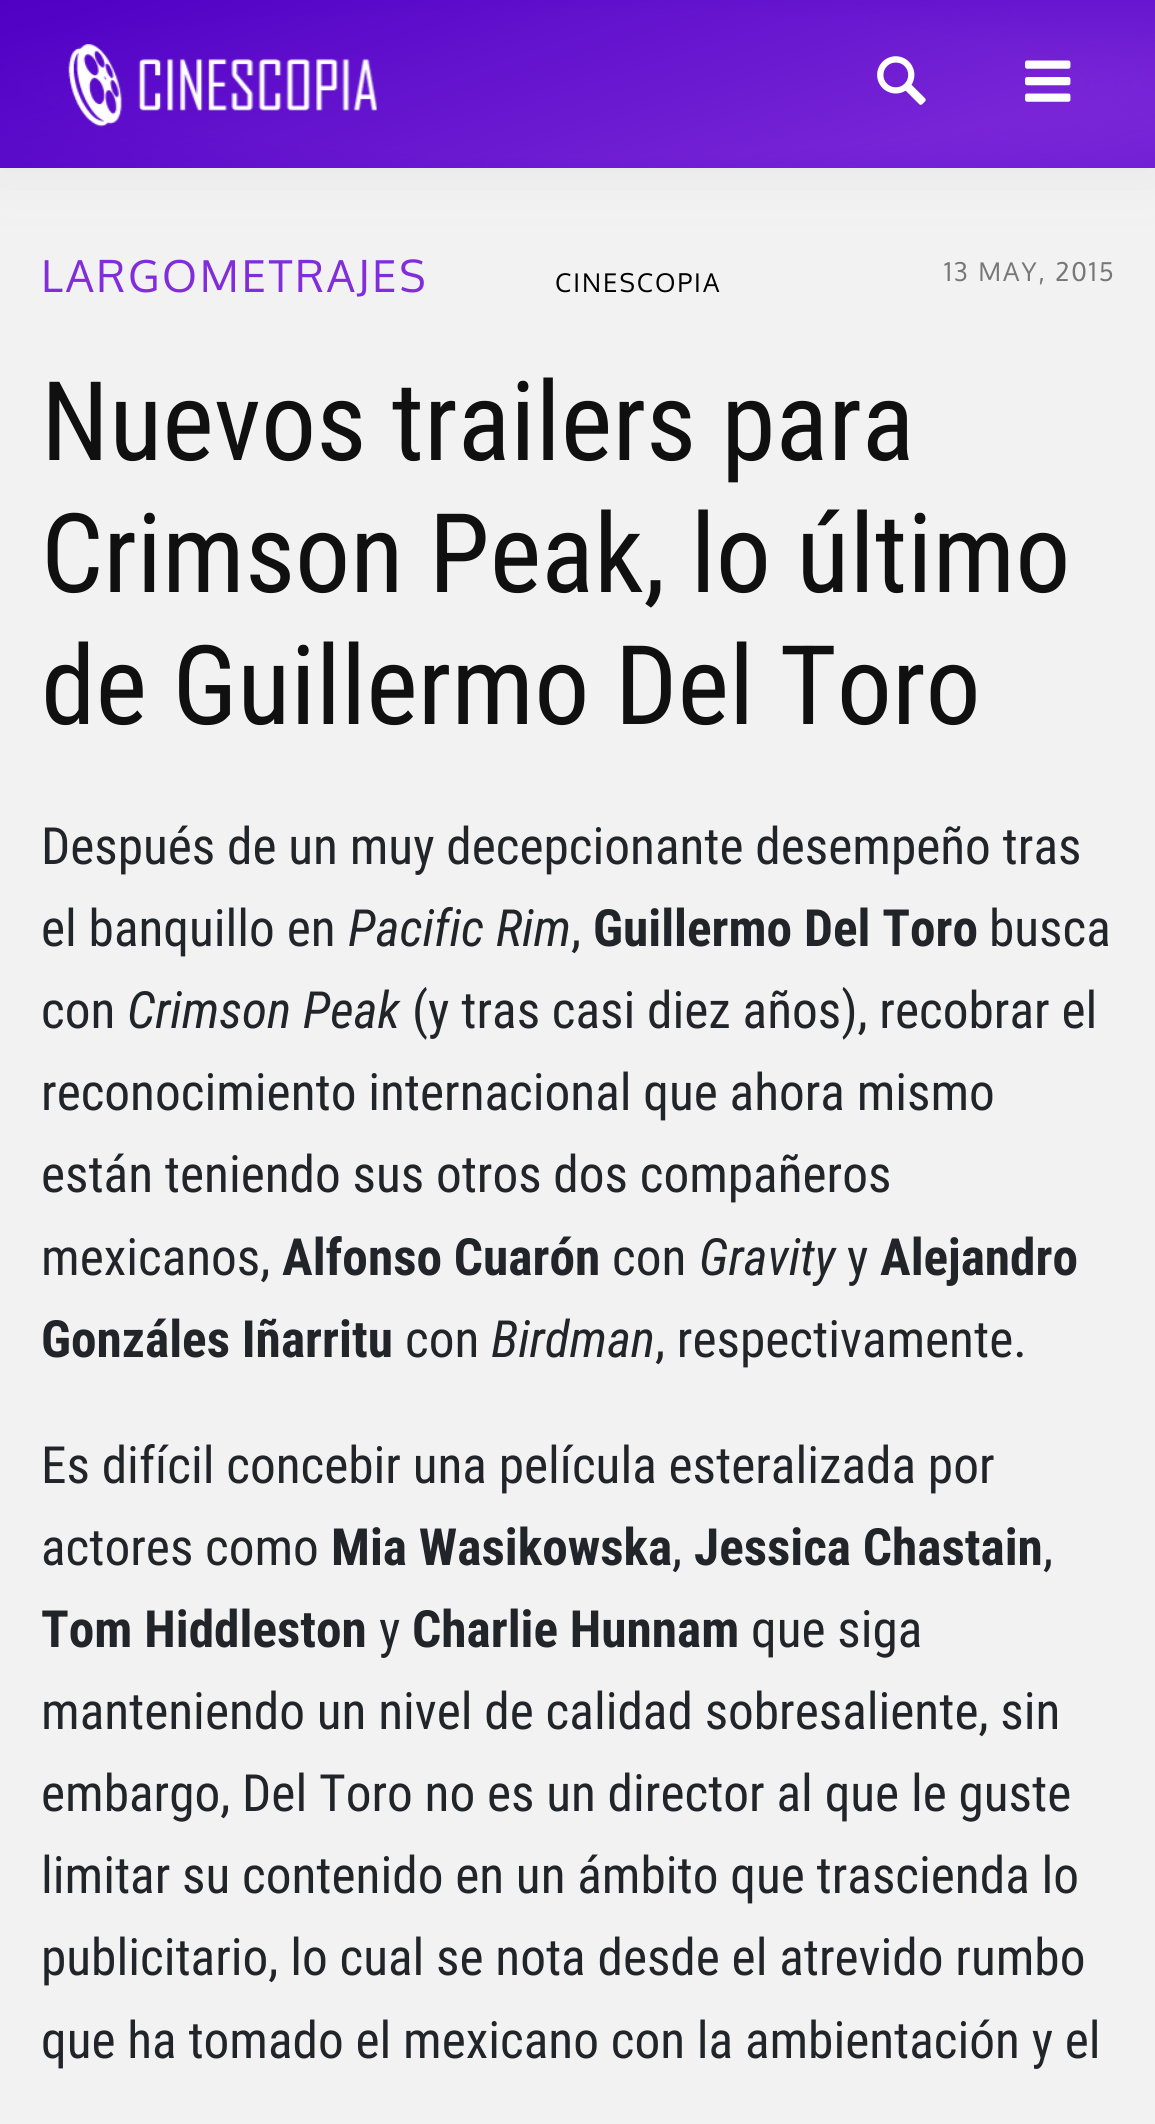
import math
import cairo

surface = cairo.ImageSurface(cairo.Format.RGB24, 1155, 2124)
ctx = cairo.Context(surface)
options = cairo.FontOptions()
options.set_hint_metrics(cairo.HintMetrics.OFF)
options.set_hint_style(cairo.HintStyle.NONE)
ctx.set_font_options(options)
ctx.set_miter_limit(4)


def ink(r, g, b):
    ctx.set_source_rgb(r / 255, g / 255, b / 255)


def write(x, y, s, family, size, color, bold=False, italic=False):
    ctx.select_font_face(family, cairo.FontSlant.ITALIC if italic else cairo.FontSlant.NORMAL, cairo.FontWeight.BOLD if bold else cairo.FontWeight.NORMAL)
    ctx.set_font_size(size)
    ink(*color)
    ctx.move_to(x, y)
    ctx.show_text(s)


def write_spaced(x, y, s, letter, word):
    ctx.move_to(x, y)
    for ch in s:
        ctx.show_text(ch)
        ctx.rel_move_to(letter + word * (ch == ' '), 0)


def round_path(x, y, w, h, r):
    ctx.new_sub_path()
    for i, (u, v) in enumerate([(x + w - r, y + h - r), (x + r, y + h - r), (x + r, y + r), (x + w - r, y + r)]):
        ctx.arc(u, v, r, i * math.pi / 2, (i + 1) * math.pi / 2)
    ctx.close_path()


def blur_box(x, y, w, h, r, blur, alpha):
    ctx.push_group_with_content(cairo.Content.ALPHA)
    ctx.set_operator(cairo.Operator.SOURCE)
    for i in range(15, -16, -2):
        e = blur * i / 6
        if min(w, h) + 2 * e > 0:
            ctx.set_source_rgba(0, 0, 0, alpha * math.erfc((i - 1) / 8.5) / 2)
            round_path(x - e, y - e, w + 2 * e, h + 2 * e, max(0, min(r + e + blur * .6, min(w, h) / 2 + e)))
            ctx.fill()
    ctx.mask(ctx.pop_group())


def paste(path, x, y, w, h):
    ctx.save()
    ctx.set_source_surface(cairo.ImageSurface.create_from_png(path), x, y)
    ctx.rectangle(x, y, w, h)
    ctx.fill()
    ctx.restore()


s1 = dict(family="Roboto Condensed", size=110, color=(16, 16, 16))
s2 = dict(family="Roboto Condensed", size=51.3, color=(33, 37, 41))
s3 = dict(family="Roboto Condensed", size=51.3, color=(33, 37, 41), italic=True)
s4 = dict(family="Roboto Condensed", size=51.3, color=(33, 37, 41), bold=True)

ink(242, 242, 242)
ctx.paint()
ink(228, 228, 228)
blur_box(0, 0, 1155, 168, 0, 27.5, 1)
gradient = cairo.LinearGradient(657, 329, 498, -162)
gradient.add_color_stop_rgba(0, 0.506, 0.176, 0.859, 1)
gradient.add_color_stop_rgba(1, 0.31, 0, 0.769, 1)
ctx.set_source(gradient)
ctx.rectangle(0, 0, 1155, 168)
ctx.fill()
gradient = cairo.RadialGradient(0, 0, 0, 0, 0, 1)
gradient.set_matrix(cairo.Matrix(1 / 817, 0, 0, 1 / 119, -1 * 578 / 817, -1 * 84 / 119))
gradient.add_color_stop_rgba(0.6, 0.31, 0, 0.769, 0)
gradient.add_color_stop_rgba(1, 0.31, 0, 0.769, 0.3)
ctx.set_source(gradient)
ctx.rectangle(0, 0, 1155, 168)
ctx.fill()
paste("pic1.png", 68, 44, 309, 83)
paste("pic2.png", 877, 56, 49, 49)
paste("pic3.png", 1025, 60, 46, 42)
ctx.select_font_face("Oxygen")
ctx.set_font_size(44)
ink(129, 45, 219)
write_spaced(41, 292, "LARGOMETRAJES", 2.75, 0)
ctx.set_font_size(25.75)
ink(0, 0, 0)
write_spaced(555, 292, "CINESCOPIA", 2, 0)
ink(119, 119, 119)
write_spaced(944, 281, "13 MAY, 2015", 2, 0)
write(41, 460, "Nuevos trailers para", **s1)
write(41, 592, "Crimson Peak, lo último", **s1)
write(41, 724, "de Guillermo Del Toro", **s1)
write(41, 864, "Después de un muy decepcionante desempeño tras", **s2)
write(41, 946, "el banquillo en", **s2)
write(348, 946, "Pacific Rim", **s3)
write(571, 946, ",", **s2)
write(593, 946, "Guillermo Del Toro", **s4)
write(989, 946, "busca", **s2)
write(41, 1028, "con", **s2)
write(127, 1028, "Crimson Peak", **s3)
write(412, 1028, "(y tras casi diez años), recobrar el", **s2)
write(41, 1110, "reconocimiento internacional que ahora mismo", **s2)
write(41, 1192, "están teniendo sus otros dos compañeros", **s2)
write(41, 1275, "mexicanos,", **s2)
write(282, 1275, "Alfonso Cuarón", **s4)
write(612, 1275, "con", **s2)
write(699, 1275, "Gravity", **s3)
write(847, 1275, "y", **s2)
write(880, 1275, "Alejandro", **s4)
write(41, 1357, "Gonzáles Iñarritu", **s4)
write(405, 1357, "con", **s2)
write(491, 1357, "Birdman", **s3)
write(655, 1357, ", respectivamente.", **s2)
write(41, 1483, "Es difícil concebir una película esteralizada por", **s2)
write(41, 1565, "actores como", **s2)
write(331, 1565, "Mia Wasikowska", **s4)
write(672, 1565, ",", **s2)
write(694, 1565, "Jessica Chastain", **s4)
write(1043, 1565, ",", **s2)
write(41, 1647, "Tom Hiddleston", **s4)
write(379, 1647, "y", **s2)
write(412, 1647, "Charlie Hunnam", **s4)
write(751, 1647, "que siga", **s2)
write(41, 1729, "manteniendo un nivel de calidad sobresaliente, sin", **s2)
write(41, 1811, "embargo, Del Toro no es un director al que le guste", **s2)
write(41, 1893, "limitar su contenido en un ámbito que trascienda lo", **s2)
write(41, 1975, "publicitario, lo cual se nota desde el atrevido rumbo", **s2)
write(41, 2058, "que ha tomado el mexicano con la ambientación y el", **s2)
surface.write_to_png("screenshot.png")
